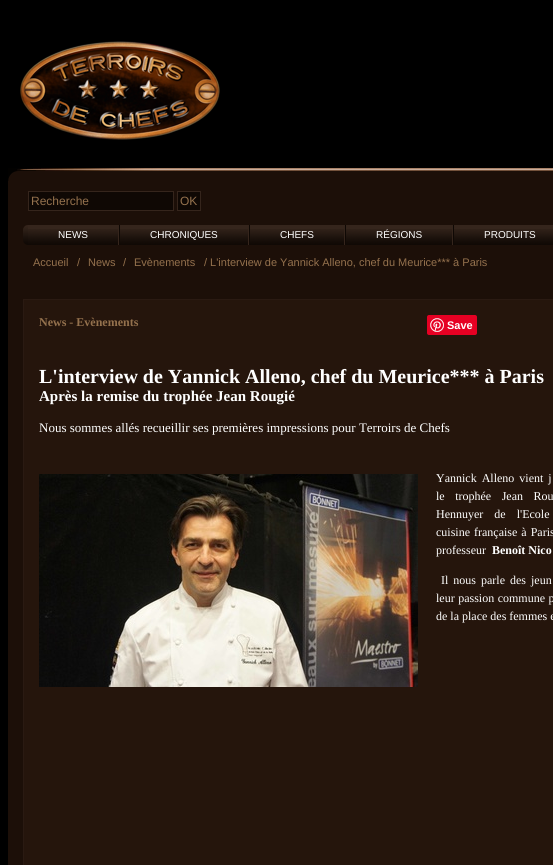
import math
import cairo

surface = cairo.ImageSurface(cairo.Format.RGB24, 553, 865)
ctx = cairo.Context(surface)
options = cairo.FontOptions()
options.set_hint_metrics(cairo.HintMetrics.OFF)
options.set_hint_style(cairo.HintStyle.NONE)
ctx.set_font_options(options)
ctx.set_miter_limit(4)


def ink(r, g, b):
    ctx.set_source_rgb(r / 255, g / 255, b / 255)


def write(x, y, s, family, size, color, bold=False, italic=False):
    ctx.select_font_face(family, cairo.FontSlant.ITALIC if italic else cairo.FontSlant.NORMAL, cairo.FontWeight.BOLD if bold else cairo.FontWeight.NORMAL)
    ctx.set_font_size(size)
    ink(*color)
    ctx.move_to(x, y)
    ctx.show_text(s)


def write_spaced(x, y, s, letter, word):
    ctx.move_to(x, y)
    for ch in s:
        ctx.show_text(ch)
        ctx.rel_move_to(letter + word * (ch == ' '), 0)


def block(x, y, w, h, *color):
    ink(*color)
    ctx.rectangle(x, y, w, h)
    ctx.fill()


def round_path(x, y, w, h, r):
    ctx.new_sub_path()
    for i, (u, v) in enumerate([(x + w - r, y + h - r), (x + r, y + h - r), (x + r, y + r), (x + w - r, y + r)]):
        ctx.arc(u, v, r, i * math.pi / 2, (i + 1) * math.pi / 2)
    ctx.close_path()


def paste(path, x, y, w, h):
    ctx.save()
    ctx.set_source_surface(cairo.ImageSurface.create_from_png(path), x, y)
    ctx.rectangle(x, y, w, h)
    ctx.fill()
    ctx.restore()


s1 = dict(family="Liberation Sans", size=12, color=(148, 113, 77))
s2 = dict(family="Liberation Sans", size=10, color=(255, 255, 255))
s3 = dict(family="Liberation Sans", size=11, color=(148, 113, 77))
s4 = dict(family="Liberation Serif", size=12, color=(148, 113, 77), bold=True)
s5 = dict(family="Liberation Sans", size=11, color=(255, 255, 255), bold=True)
s6 = dict(family="Liberation Serif", size=20, color=(255, 255, 255), bold=True)
s7 = dict(family="Liberation Serif", size=15, color=(255, 255, 255), bold=True)
s8 = dict(family="Liberation Serif", size=13, color=(255, 255, 255))
s9 = dict(family="Liberation Serif", size=12, color=(255, 255, 255))
s10 = dict(family="Liberation Serif", size=12, color=(255, 255, 255), bold=True)

ink(0, 0, 0)
ctx.paint()
paste("pic1.png", 20, 41, 200, 99)
paste("pic2.png", 8, 168, 545, 13)
block(8, 181, 545, 684, 28, 15, 8)
ink(15, 8, 4)
ctx.rectangle(28.5, 191.5, 145, 19)
ctx.fill_preserve()
ink(53, 37, 28)
ctx.set_line_width(1)
ctx.stroke()
write(31, 205, "Recherche", **s1)
ink(15, 8, 4)
ctx.rectangle(177.5, 191.5, 23, 19)
ctx.fill_preserve()
ink(53, 37, 28)
ctx.stroke()
write(180, 205, "OK", **s1)
paste("pic3.png", 23, 225, 5, 20)
block(28, 225, 525, 4, 53, 37, 28)
paste("pic4.png", 28, 229, 525, 16)
write(58, 238, "NEWS", **s2)
paste("pic5.png", 118, 225, 2, 20)
write(150, 238, "CHRONIQUES", **s2)
paste("pic5.png", 248, 225, 2, 20)
write(280, 238, "CHEFS", **s2)
paste("pic5.png", 344, 225, 2, 20)
write(376, 238, "RÉGIONS", **s2)
paste("pic5.png", 452, 225, 2, 20)
write(484, 238, "PRODUITS", **s2)
write(33, 266, "Accueil", **s3)
write(77, 266, "/", **s3)
write(88, 266, "News", **s3)
write(123, 266, "/", **s3)
write(134, 266, "Evènements", **s3)
write(204, 266, "/ L'interview de Yannick Alleno, chef du Meurice*** à Paris", **s3)
ink(37, 21, 12)
ctx.rectangle(23.5, 299.5, 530, 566)
ctx.fill_preserve()
ink(42, 26, 18)
ctx.stroke()
write(39, 326, "News - Evènements", **s4)
ink(230, 0, 35)
round_path(427, 315, 50, 20, 2)
ctx.fill()
paste("pic6.png", 430, 318, 14, 14)
write(447, 329, "Save", **s5)
write(39, 383, "L'interview de Yannick Alleno, chef du Meurice*** à Paris", **s6)
write(39, 401, "Après la remise du trophée Jean Rougié", **s7)
write(39, 432, "Nous sommes allés recueillir ses premières impressions pour Terroirs de Chefs", **s8)
paste("pic7.png", 39, 474, 379, 213)
ctx.set_font_size(12)
write_spaced(436, 482, "Yannick Alleno vient j", 0, 2)
write_spaced(436, 500, "le trophée Jean Rou", 0, 7.5)
write_spaced(436, 518, "Hennuyer de l'Ecole", 0, 8)
write_spaced(436, 536, "cuisine française à Paris", 0, 1)
write(436, 554, "professeur", **s9)
write(492, 554, "Benoît Nico", **s10)
ctx.select_font_face("Liberation Serif")
write_spaced(441, 584, "Il nous parle des jeun", 0, 2)
write_spaced(436, 602, "leur passion commune p", 0, 0.5)
write(436, 620, "de la place des femmes e", **s9)
surface.write_to_png("screenshot.png")
